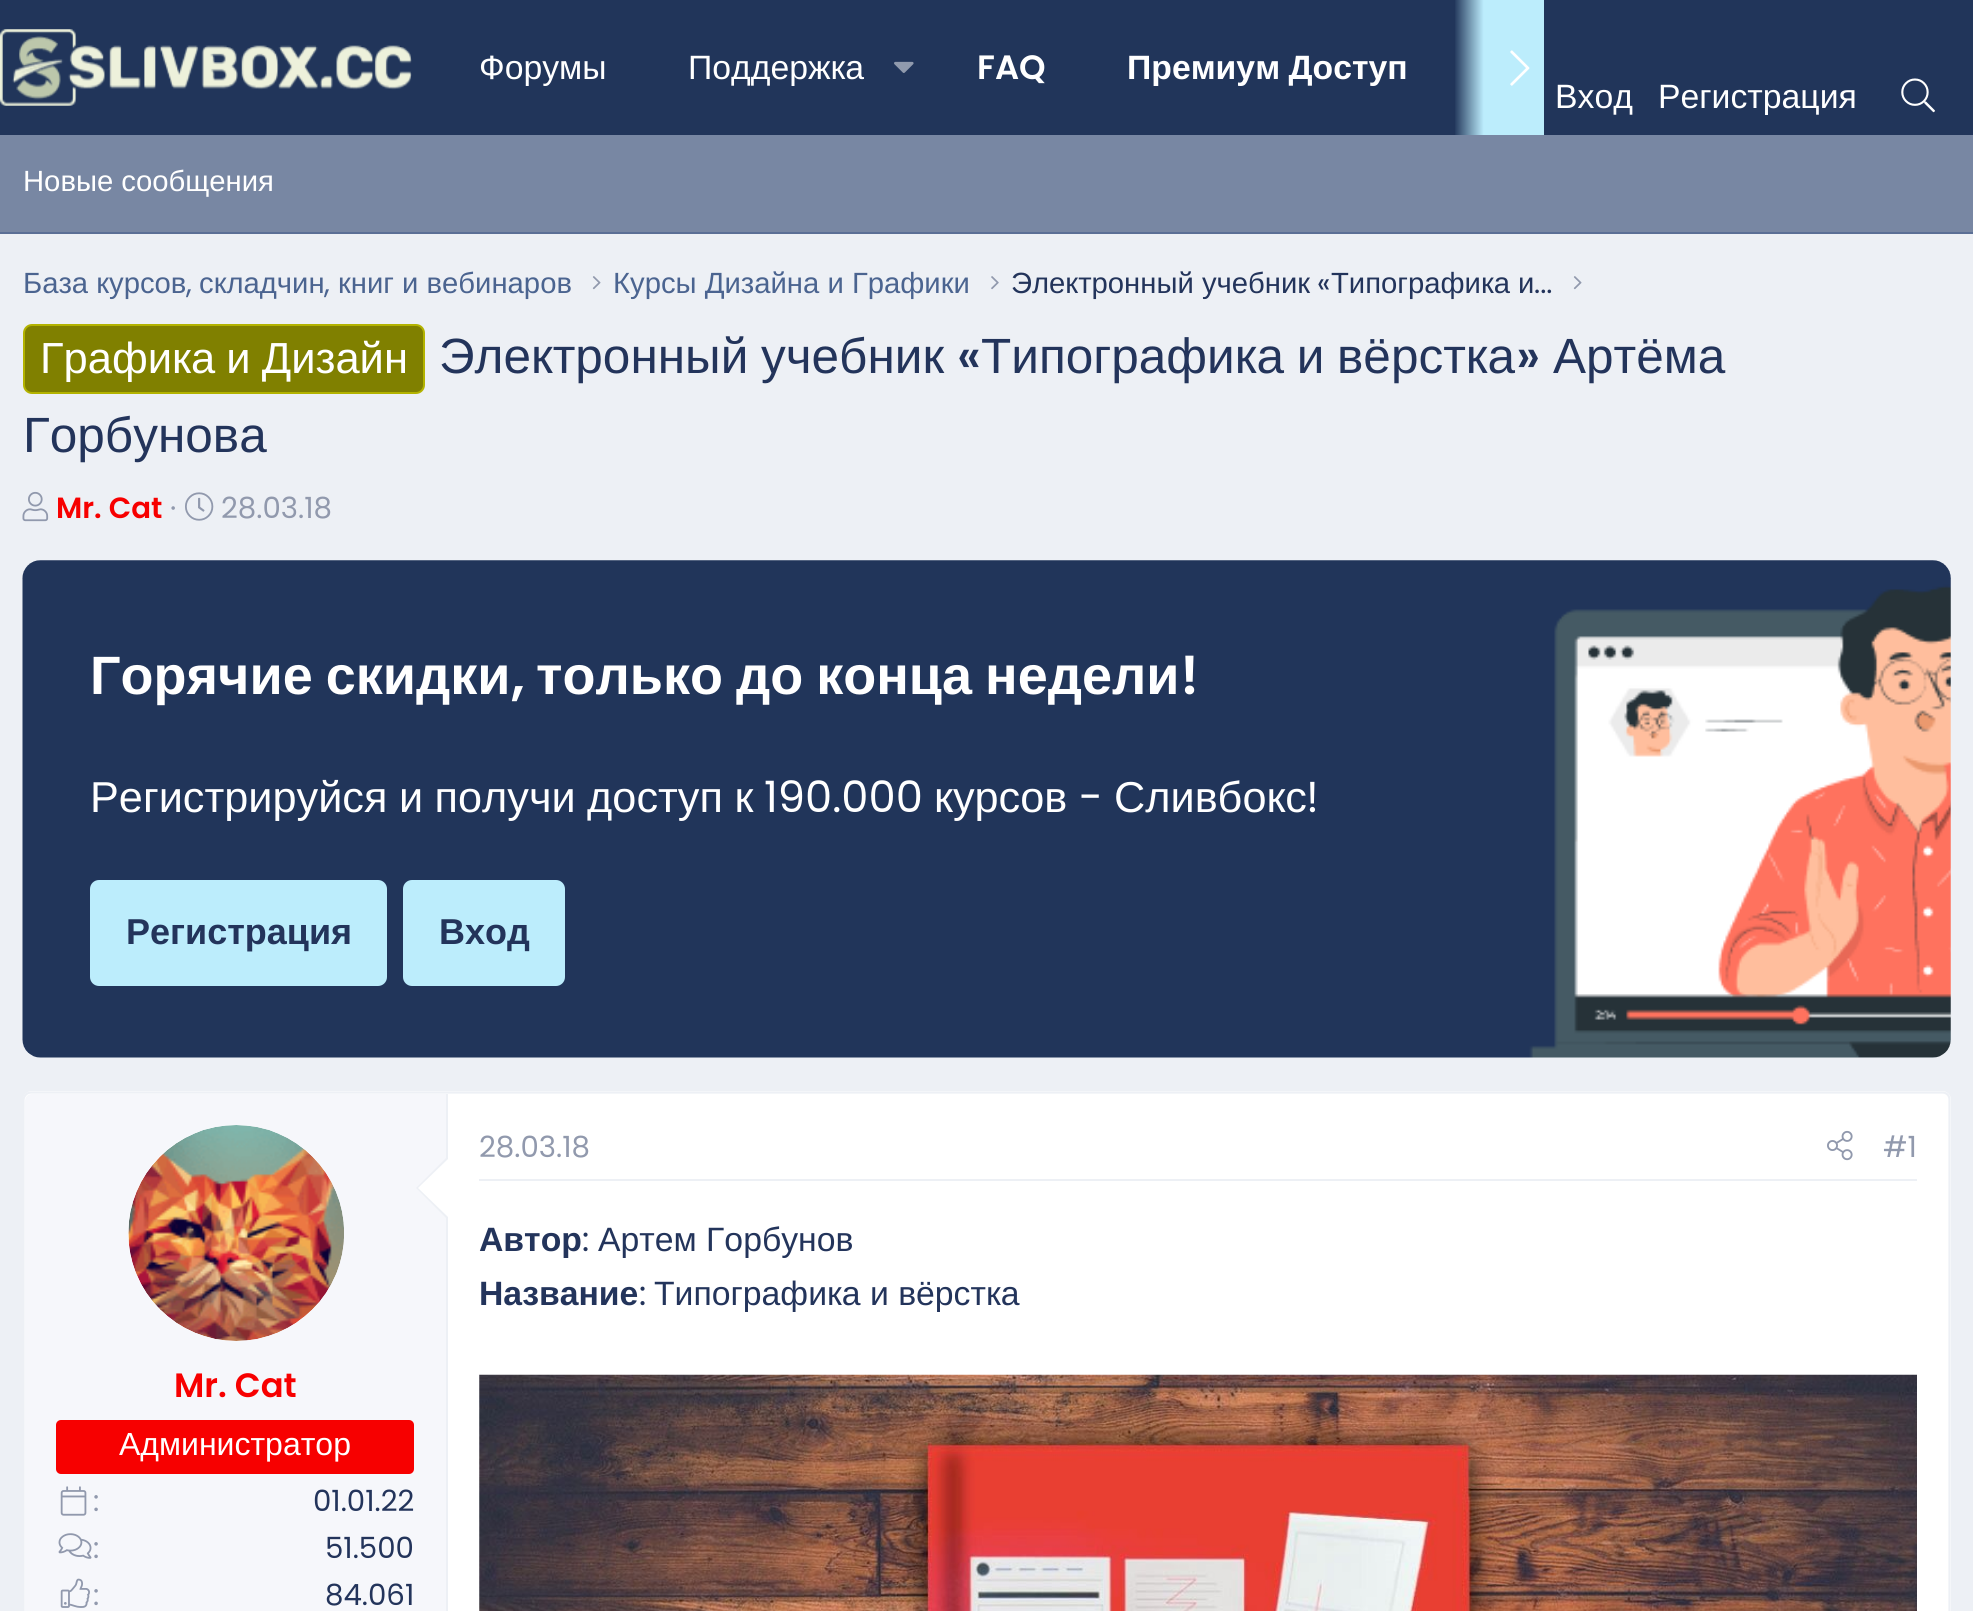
import math
import cairo

surface = cairo.ImageSurface(cairo.Format.RGB24, 1973, 1611)
ctx = cairo.Context(surface)
options = cairo.FontOptions()
options.set_hint_metrics(cairo.HintMetrics.OFF)
options.set_hint_style(cairo.HintStyle.NONE)
ctx.set_font_options(options)
ctx.set_miter_limit(4)


def ink(r, g, b):
    ctx.set_source_rgb(r / 255, g / 255, b / 255)


def write(x, y, s, family, size, color, bold=False, italic=False):
    ctx.select_font_face(family, cairo.FontSlant.ITALIC if italic else cairo.FontSlant.NORMAL, cairo.FontWeight.BOLD if bold else cairo.FontWeight.NORMAL)
    ctx.set_font_size(size)
    ink(*color)
    ctx.move_to(x, y)
    ctx.show_text(s)


def write_spaced(x, y, s, letter, word):
    ctx.move_to(x, y)
    for ch in s:
        ctx.show_text(ch)
        ctx.rel_move_to(letter + word * (ch == ' '), 0)


def block(x, y, w, h, *color):
    ink(*color)
    ctx.rectangle(x, y, w, h)
    ctx.fill()


def round_path(x, y, w, h, r):
    ctx.new_sub_path()
    for i, (u, v) in enumerate([(x + w - r, y + h - r), (x + r, y + h - r), (x + r, y + r), (x + w - r, y + r)]):
        ctx.arc(u, v, r, i * math.pi / 2, (i + 1) * math.pi / 2)
    ctx.close_path()


def paste(path, x, y, w, h):
    ctx.save()
    ctx.set_source_surface(cairo.ImageSurface.create_from_png(path), x, y)
    ctx.rectangle(x, y, w, h)
    ctx.fill()
    ctx.restore()


s1 = dict(family="Liberation Sans", size=33.75, color=(255, 255, 255))
s2 = dict(family="Poppins SemiBold", size=33.75, color=(255, 255, 255))
s3 = dict(family="Liberation Sans", size=29.25, color=(255, 255, 255))
s4 = dict(family="Liberation Sans", size=29.25, color=(75, 100, 144))
s5 = dict(family="Poppins", size=29.25, color=(75, 100, 144))
s6 = dict(family="Liberation Sans", size=29.25, color=(35, 52, 91))
s7 = dict(family="Poppins", size=29.25, color=(35, 52, 91))
s8 = dict(family="Poppins Medium", size=49.5, color=(35, 52, 91))
s9 = dict(family="Liberation Sans", size=49.5, color=(35, 52, 91))
s10 = dict(family="Poppins SemiBold", size=29.25, color=(247, 0, 0))
s11 = dict(family="Poppins", size=29.25, color=(145, 153, 173))
s12 = dict(family="Poppins SemiBold", size=54, color=(255, 255, 255))
s13 = dict(family="Poppins", size=43.25, color=(255, 255, 255))
s14 = dict(family="Liberation Sans", size=43.25, color=(255, 255, 255))
s15 = dict(family="Liberation Sans", size=36, color=(35, 52, 91), bold=True)
s16 = dict(family="Liberation Sans", size=33.75, color=(35, 52, 91), bold=True)
s17 = dict(family="Poppins", size=33.75, color=(35, 52, 91))
s18 = dict(family="Liberation Sans", size=33.75, color=(35, 52, 91))
s19 = dict(family="Poppins SemiBold", size=33.75, color=(247, 0, 0))
s20 = dict(family="Liberation Sans", size=32, color=(255, 255, 255))

ink(237, 240, 245)
ctx.paint()
block(0, 0, 1973, 135, 33, 53, 90)
paste("pic1.png", 0, 29, 412, 77)
write(479, 79, "Форумы", **s1)
write(688, 79, "Поддержка", **s1)
paste("pic2.png", 894, 61, 20, 12)
write(977, 79, "FAQ", **s2)
ctx.select_font_face("Liberation Sans", cairo.FontSlant.NORMAL, cairo.FontWeight.BOLD)
write_spaced(1127, 79, "Премиум Доступ", 0, -1)
gradient = cairo.LinearGradient(1454, 68, 1544, 68)
gradient.add_color_stop_rgba(0, 0.737, 0.929, 0.988, 0)
gradient.add_color_stop_rgba(0.33, 0.737, 0.929, 0.988, 1)
ctx.set_source(gradient)
ctx.rectangle(1455, 0, 89, 135)
ctx.fill()
paste("pic3.png", 1510, 50, 20, 36)
write(1555, 108, "Вход", **s1)
write(1658, 108, "Регистрация", **s1)
paste("pic4.png", 1901, 78, 34, 35)
block(0, 135, 1973, 97, 120, 135, 163)
block(0, 232, 1973, 2, 91, 111, 149)
write(23, 191, "Новые сообщения", **s3)
write(23, 293, "База курсов", **s4)
write(186, 293, ",", **s5)
write(199, 293, "складчин", **s4)
write(324, 293, ",", **s5)
write(338, 293, "книг и вебинаров", **s4)
paste("pic5.png", 592, 276, 9, 14)
write(613, 293, "Курсы Дизайна и Графики", **s4)
paste("pic6.png", 991, 276, 8, 14)
write(1011, 293, "Электронный учебник", **s6)
write(1317, 293, "«", **s7)
write(1331, 293, "Типографика и", **s6)
paste("pic5.png", 1573, 276, 9, 14)
write(1534, 293, "...", **s7)
ink(128, 128, 0)
round_path(24, 325, 400, 68, 8)
ctx.fill_preserve()
ink(179, 179, 0)
ctx.stroke()
ctx.select_font_face("Liberation Sans")
ctx.set_font_size(43.5)
ink(255, 255, 255)
write_spaced(40, 373, "Графика и Дизайн", 0, -1)
ctx.set_font_size(49.5)
ink(35, 52, 91)
write_spaced(439, 373, "Электронный учебник", 0, -1)
write(957, 373, "«", **s8)
ctx.select_font_face("Liberation Sans")
write_spaced(981, 373, "Типографика и вёрстка", 0, -1)
write(1516, 373, "»", **s8)
write(1553, 373, "Артёма", **s9)
write(23, 452, "Горбунова", **s9)
paste("pic7.png", 22, 491, 27, 31)
write(56, 518, "Mr. Cat", **s10)
write(170, 518, "·", **s11)
paste("pic8.png", 185, 492, 29, 29)
write(221, 518, "28.03.18", **s11)
paste("pic9.png", 22, 560, 1929, 498)
ctx.select_font_face("Liberation Sans", cairo.FontSlant.NORMAL, cairo.FontWeight.BOLD)
ctx.set_font_size(54)
ink(255, 255, 255)
write_spaced(90, 694, "Горячие скидки", 0, -2)
write(511, 694, ",", **s12)
ctx.select_font_face("Liberation Sans", cairo.FontSlant.NORMAL, cairo.FontWeight.BOLD)
write_spaced(536, 694, "только до конца недели", 0, -2)
write(1180, 694, "!", **s12)
ctx.select_font_face("Liberation Sans")
ctx.set_font_size(43.25)
write_spaced(90, 812, "Регистрируйся и получи доступ к", 0, -0.5)
write(764, 812, "190.000", **s13)
write(934, 812, "курсов", **s14)
write(1079, 812, "-", **s13)
write(1114, 812, "Сливбокс", **s14)
write(1306, 812, "!", **s13)
ink(188, 237, 252)
round_path(91, 881, 295, 104, 8)
ctx.fill_preserve()
ctx.stroke()
write(126, 944, "Регистрация", **s15)
ink(188, 237, 252)
round_path(404, 881, 160, 104, 8)
ctx.fill_preserve()
ctx.stroke()
write(439, 944, "Вход", **s15)
ink(255, 255, 255)
round_path(23, 1091, 1928, 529, 9)
ctx.fill()
ctx.new_path()
ctx.move_to(26, 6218)
ctx.curve_to(24.5, 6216.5, 23.5, 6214.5, 23.5, 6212)
ctx.line_to(23.5, 1100)
ctx.curve_to(23.5, 1098, 24.5, 1096, 26, 1094.5)
ctx.curve_to(27.5, 1093, 29.5, 1092.5, 31.5, 1092.5)
ctx.line_to(1942, 1092.5)
ctx.curve_to(1944, 1092.5, 1946, 1093, 1947.5, 1094.5)
ctx.curve_to(1949, 1096, 1949.5, 1098, 1949.5, 1100)
ctx.line_to(1949.5, 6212)
ctx.curve_to(1949.5, 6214.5, 1949, 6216.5, 1947.5, 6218)
ink(237, 240, 245)
ctx.set_line_width(2.2)
ctx.stroke()
block(479, 1179, 1438, 2, 237, 240, 245)
write(479, 1157, "28.03.18", **s11)
paste("pic10.png", 1827, 1130, 26, 31)
write(1883, 1157, "#1", **s11)
write(479, 1251, "Автор", **s16)
write(582, 1251, ":", **s17)
write(598, 1251, "Артем Горбунов", **s18)
write(479, 1305, "Название", **s16)
write(639, 1305, ":", **s17)
write(654, 1305, "Типографика и вёрстка", **s18)
paste("pic11.png", 479, 1374, 1438, 237)
ink(246, 247, 251)
ctx.new_path()
ctx.move_to(32, 1094)
ctx.line_to(448, 1094)
ctx.line_to(448, 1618)
ctx.line_to(32, 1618)
ctx.curve_to(28, 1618, 25, 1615, 25, 1611)
ctx.line_to(25, 1101)
ctx.curve_to(25, 1097, 28, 1094, 32, 1094)
ctx.close_path()
ctx.fill()
block(446, 1094, 2, 517, 237, 240, 245)
ink(255, 255, 255)
ctx.arc(236, 1233, 108, 0, 2 * math.pi)
ctx.fill()
paste("pic12.png", 128, 1125, 216, 216)
ink(237, 240, 245)
ctx.new_path()
ctx.move_to(448, 1156)
ctx.line_to(448, 1220)
ctx.line_to(416, 1188)
ctx.close_path()
ctx.fill()
ink(255, 255, 255)
ctx.new_path()
ctx.move_to(448, 1159)
ctx.line_to(448, 1217)
ctx.line_to(418, 1188)
ctx.close_path()
ctx.fill()
write(174, 1397, "Mr. Cat", **s19)
round_path(56, 1420, 358, 54, 5)
ctx.fill()
write(119, 1455, "Администратор", **s20)
paste("pic13.png", 60, 1486, 27, 30)
write(93, 1511, ":", **s11)
write(313, 1511, "01.01.22", **s7)
paste("pic14.png", 58, 1533, 34, 26)
write(93, 1558, ":", **s11)
write(325, 1558, "51.500", **s7)
paste("pic15.png", 60, 1578, 30, 30)
write(93, 1605, ":", **s11)
write(325, 1605, "84.061", **s7)
surface.write_to_png("screenshot.png")
